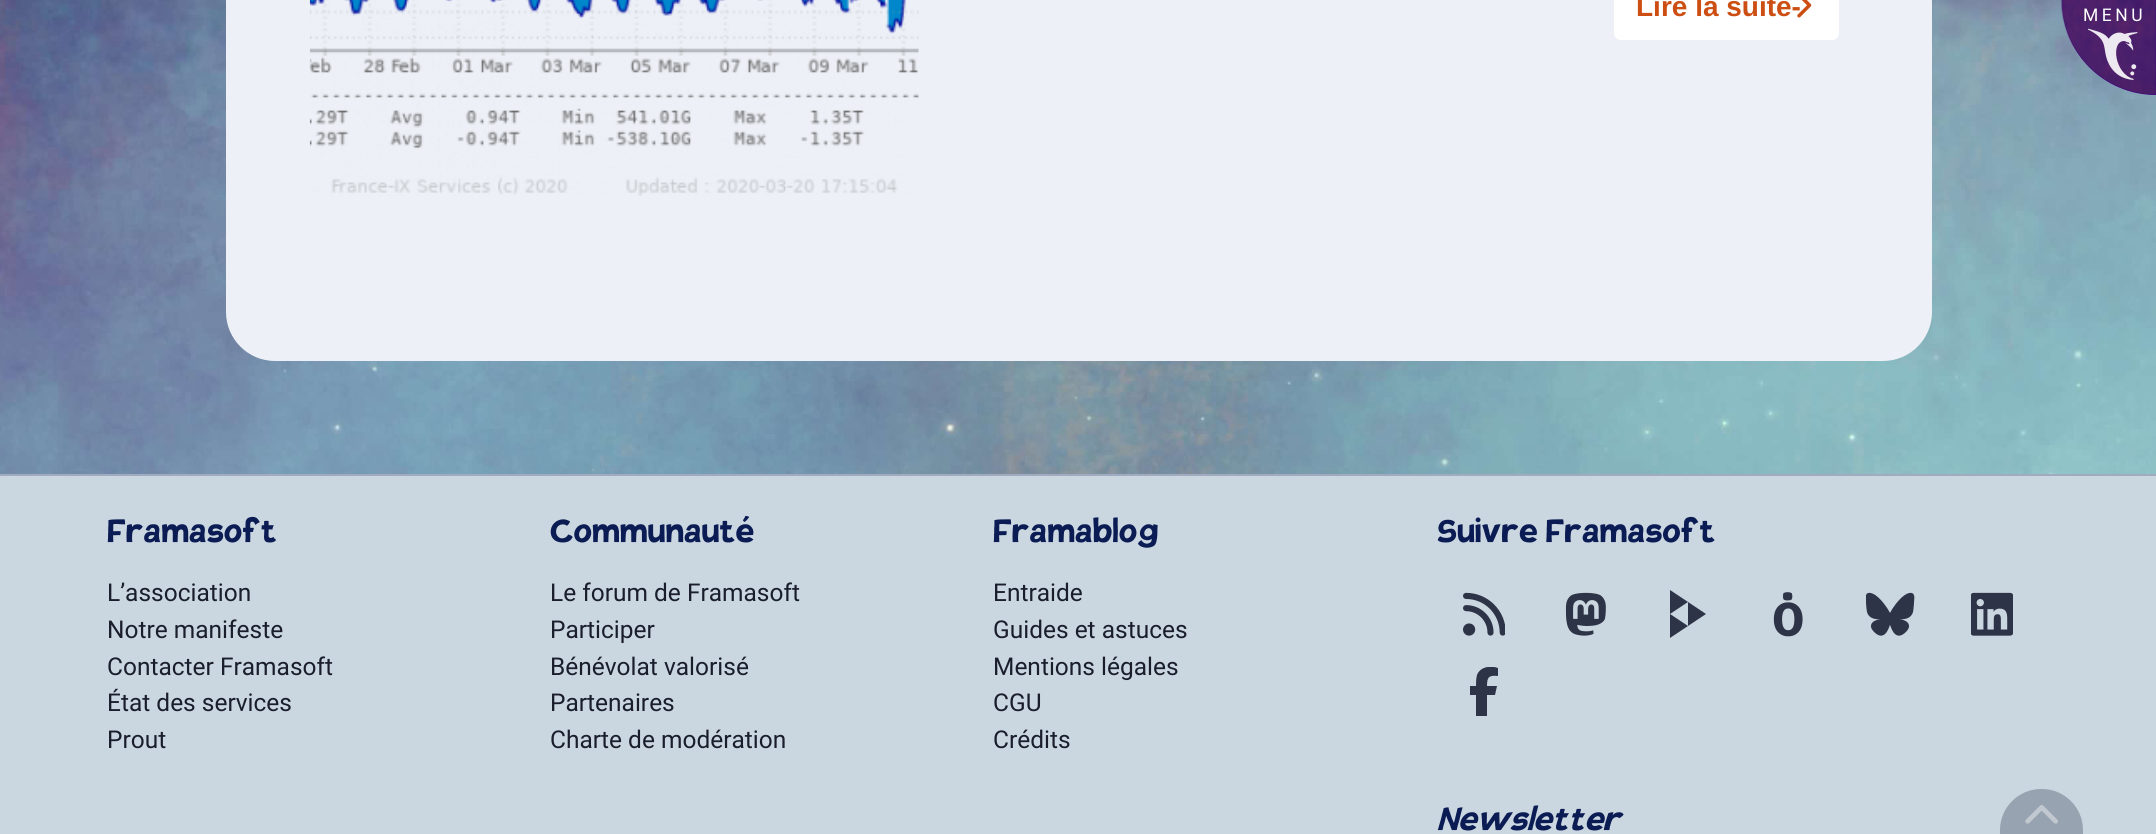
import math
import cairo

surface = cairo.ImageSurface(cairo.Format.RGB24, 2156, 834)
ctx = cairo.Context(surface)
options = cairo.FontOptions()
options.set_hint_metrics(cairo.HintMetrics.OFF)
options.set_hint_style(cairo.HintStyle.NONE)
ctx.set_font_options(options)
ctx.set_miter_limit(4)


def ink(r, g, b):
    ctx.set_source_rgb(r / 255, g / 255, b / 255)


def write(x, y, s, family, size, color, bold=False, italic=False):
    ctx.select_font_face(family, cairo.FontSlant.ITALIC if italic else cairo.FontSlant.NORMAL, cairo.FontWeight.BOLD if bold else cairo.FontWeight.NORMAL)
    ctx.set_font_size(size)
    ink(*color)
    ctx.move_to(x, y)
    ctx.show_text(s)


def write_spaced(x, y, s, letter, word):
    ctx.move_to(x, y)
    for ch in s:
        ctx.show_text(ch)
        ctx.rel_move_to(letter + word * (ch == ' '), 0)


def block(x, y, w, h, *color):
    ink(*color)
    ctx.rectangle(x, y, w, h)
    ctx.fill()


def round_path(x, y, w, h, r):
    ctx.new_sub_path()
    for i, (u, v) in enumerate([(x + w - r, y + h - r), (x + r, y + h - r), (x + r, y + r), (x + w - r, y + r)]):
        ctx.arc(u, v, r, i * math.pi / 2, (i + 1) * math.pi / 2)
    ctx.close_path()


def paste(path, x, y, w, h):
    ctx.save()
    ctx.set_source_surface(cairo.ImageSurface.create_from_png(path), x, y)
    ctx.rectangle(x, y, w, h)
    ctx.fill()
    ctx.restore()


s1 = dict(family="Liberation Sans", size=28, color=(204, 78, 19), bold=True)
s2 = dict(family="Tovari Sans", size=42, color=(11, 28, 84), bold=True)
s3 = dict(family="Roboto", size=24.5, color=(26, 30, 44))
s4 = dict(family="Tovari Sans", size=42, color=(11, 28, 84), bold=True, italic=True)

ink(255, 255, 255)
ctx.paint()
paste("pic1.png", 0, 0, 2156, 474)
ink(237, 241, 247)
ctx.new_path()
ctx.move_to(282, -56)
ctx.line_to(1876, -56)
ctx.curve_to(1907, -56, 1932, -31, 1932, 0)
ctx.line_to(1932, 312)
ctx.curve_to(1932, 339, 1910, 361, 1883, 361)
ctx.line_to(275, 361)
ctx.curve_to(248, 361, 226, 339, 226, 312)
ctx.line_to(226, 0)
ctx.curve_to(226, -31, 251, -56, 282, -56)
ctx.close_path()
ctx.fill()
paste("pic2.png", 309, 0, 610, 196)
ink(255, 255, 255)
round_path(1614, -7, 225, 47, 7)
ctx.fill()
write(1636, 16, "Lire la suite-", **s1)
paste("pic3.png", 1797, 0, 15, 18)
ink(64, 1, 128)
ctx.new_path()
ctx.move_to(2062, 0)
ctx.line_to(2156, 0)
ctx.line_to(2156, 95)
ctx.curve_to(2104, 95, 2062, 53, 2062, 1)
ctx.close_path()
ctx.fill()
paste("pic4.png", 2061, 0, 95, 95)
ctx.select_font_face("Roboto")
ctx.set_font_size(17.5)
ink(255, 255, 255)
write_spaced(2083, 21, "MENU", 3.5, 0)
paste("pic5.png", 2087, 28, 51, 52)
block(0, 476, 2156, 358, 203, 215, 224)
ink(151, 163, 176)
ctx.new_path()
ctx.move_to(2041, 789)
ctx.line_to(2042, 789)
ctx.curve_to(2064.5, 789, 2083, 807.5, 2083, 830)
ctx.line_to(2083, 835)
ctx.line_to(2000, 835)
ctx.line_to(2000, 830)
ctx.curve_to(2000, 807.5, 2018.5, 789, 2041, 789)
ctx.close_path()
ctx.fill()
paste("pic6.png", 2025, 805, 33, 19)
block(0, 474, 2156, 2, 160, 171, 192)
write(107, 542, "Framasoft", **s2)
write(107, 601, "L’association", **s3)
write(107, 638, "Notre manifeste", **s3)
write(107, 675, "Contacter Framasoft", **s3)
write(107, 711, "État des services", **s3)
write(107, 748, "Prout", **s3)
write(550, 542, "Communauté", **s2)
write(550, 601, "Le forum de Framasoft", **s3)
write(550, 638, "Participer", **s3)
write(550, 675, "Bénévolat valorisé", **s3)
write(550, 711, "Partenaires", **s3)
write(550, 748, "Charte de modération", **s3)
write(993, 542, "Framablog", **s2)
write(993, 601, "Entraide", **s3)
write(993, 638, "Guides et astuces", **s3)
write(993, 675, "Mentions légales", **s3)
write(993, 711, "CGU", **s3)
write(993, 748, "Crédits", **s3)
write(1437, 542, "Suivre Framasoft", **s2)
paste("pic7.png", 1463, 592, 42, 44)
paste("pic8.png", 1565, 592, 41, 44)
ink(45, 52, 72)
ctx.new_path()
ctx.move_to(1670, 590)
ctx.line_to(1670, 614)
ctx.line_to(1688, 602)
ctx.close_path()
ctx.move_to(1688, 602)
ctx.line_to(1688, 626)
ctx.line_to(1706, 614)
ctx.close_path()
ctx.move_to(1688, 626)
ctx.line_to(1670, 614)
ctx.line_to(1670, 638)
ctx.close_path()
ctx.fill()
paste("pic9.png", 1773, 592, 30, 45)
paste("pic10.png", 1866, 592, 49, 44)
paste("pic11.png", 1971, 592, 42, 44)
ctx.save()
ctx.rectangle(1468, 667, 32, 49)
ctx.clip()
ctx.new_path()
ctx.move_to(1476, 695)
ctx.line_to(1476, 716)
ctx.line_to(1487, 716)
ctx.line_to(1487, 695)
ctx.line_to(1495, 695)
ctx.line_to(1497, 686)
ctx.line_to(1487, 686)
ctx.curve_to(1487, 677, 1489, 675, 1498, 676)
ctx.line_to(1498, 668)
ctx.curve_to(1490, 665, 1480, 667, 1477, 675)
ctx.curve_to(1476, 679, 1476, 682, 1476, 686)
ctx.line_to(1470, 686)
ctx.line_to(1470, 695)
ctx.close_path()
ctx.fill()
ctx.restore()
write(1437, 830, "Newsletter", **s4)
surface.write_to_png("screenshot.png")
